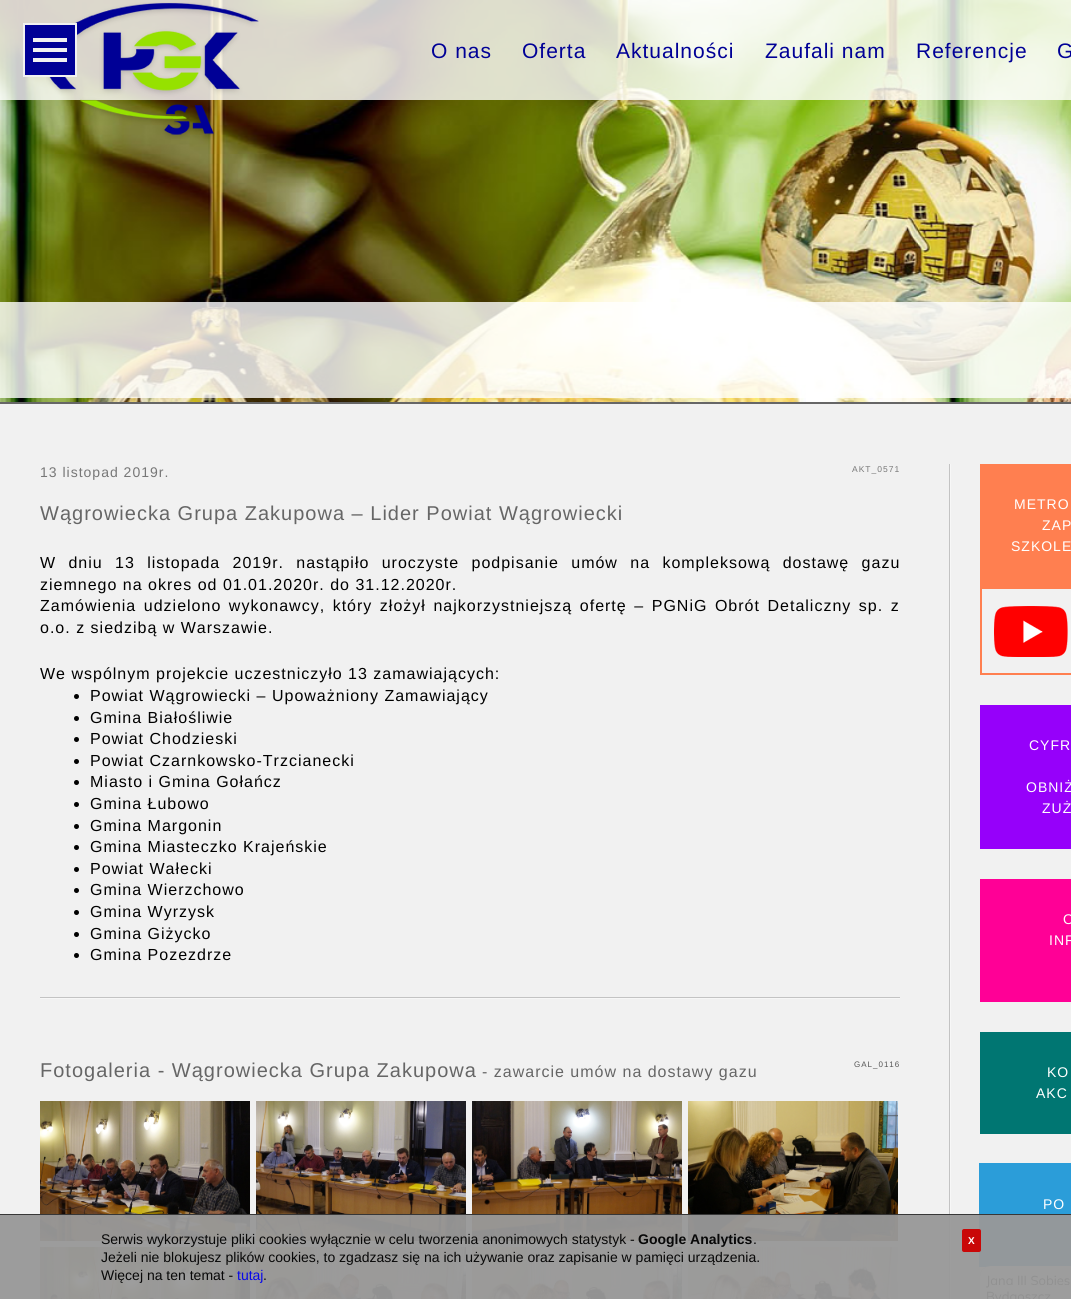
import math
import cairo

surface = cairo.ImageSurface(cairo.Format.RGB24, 1071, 1299)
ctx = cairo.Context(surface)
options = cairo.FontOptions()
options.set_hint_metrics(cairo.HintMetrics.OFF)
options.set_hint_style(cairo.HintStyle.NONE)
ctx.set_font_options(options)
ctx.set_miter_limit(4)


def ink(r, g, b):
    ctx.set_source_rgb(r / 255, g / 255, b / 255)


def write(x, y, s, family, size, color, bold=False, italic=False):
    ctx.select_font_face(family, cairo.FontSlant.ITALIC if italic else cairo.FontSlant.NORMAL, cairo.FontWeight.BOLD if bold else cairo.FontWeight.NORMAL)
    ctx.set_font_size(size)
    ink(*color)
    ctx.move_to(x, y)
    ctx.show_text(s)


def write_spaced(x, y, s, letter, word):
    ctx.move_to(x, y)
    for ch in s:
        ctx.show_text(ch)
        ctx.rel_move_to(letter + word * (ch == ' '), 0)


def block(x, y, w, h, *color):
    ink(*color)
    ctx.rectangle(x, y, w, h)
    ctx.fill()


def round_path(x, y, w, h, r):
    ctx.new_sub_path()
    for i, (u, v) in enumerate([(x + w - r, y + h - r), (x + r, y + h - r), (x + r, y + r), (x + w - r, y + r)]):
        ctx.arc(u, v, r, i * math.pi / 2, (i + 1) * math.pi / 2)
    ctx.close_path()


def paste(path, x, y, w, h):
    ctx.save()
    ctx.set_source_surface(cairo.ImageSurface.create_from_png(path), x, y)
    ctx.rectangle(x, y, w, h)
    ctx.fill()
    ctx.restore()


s1 = dict(family="Liberation Sans", size=14, color=(8, 8, 8))
s2 = dict(family="Liberation Sans", size=14, color=(8, 8, 8), bold=True)
s3 = dict(family="Liberation Sans", size=14, color=(8, 8, 234))
s4 = dict(family="Liberation Sans", size=10, color=(255, 255, 255), bold=True)

ink(255, 255, 255)
ctx.paint()
paste("pic1.png", 0, 0, 1071, 402)
ctx.set_source_rgba(1, 1, 1, 0.8)
ctx.rectangle(0, 0, 1071, 100)
ctx.fill()
paste("pic3.png", 46, 2, 213, 137)
block(23, 23, 54, 54, 241, 241, 241)
paste("pic2.png", 25, 25, 50, 50)
ctx.select_font_face("Liberation Sans")
ctx.set_font_size(21)
ink(0, 0, 150)
write_spaced(431, 58, "O nas", 1, 0)
write_spaced(522, 58, "Oferta", 1, 0)
write_spaced(616, 58, "Aktualności", 1, 0)
write_spaced(765, 58, "Zaufali nam", 1, 0)
write_spaced(916, 58, "Referencje", 1, 0)
write_spaced(1057, 58, "G", 1, 0)
ctx.set_source_rgba(1, 1, 1, 0.8)
ctx.rectangle(0, 302, 1071, 96)
ctx.fill()
block(0, 402, 1071, 2, 102, 102, 102)
block(0, 404, 1071, 895, 241, 241, 241)
paste("pic4.png", 949, 464, 2, 835)
ctx.set_font_size(14)
ink(119, 119, 119)
write_spaced(40, 477, "13 listopad 2019r.", 1, 0)
ctx.set_font_size(8.5)
write_spaced(852, 472, "AKT_0571", 1, 0)
ctx.set_font_size(20)
ink(102, 102, 102)
write_spaced(40, 520, "Wągrowiecka Grupa Zakupowa – Lider Powiat Wągrowiecki", 1, 0)
ctx.set_font_size(16)
ink(0, 0, 0)
write_spaced(40, 568, "W dniu 13 listopada 2019r. nastąpiło uroczyste podpisanie umów na kompleksową dostawę gazu", 1, 6.9)
write_spaced(40, 590, "ziemnego na okres od 01.01.2020r. do 31.12.2020r.", 1, 0)
write_spaced(40, 611, "Zamówienia udzielono wykonawcy, który złożył najkorzystniejszą ofertę – PGNiG Obrót Detaliczny sp. z", 1, 2.1)
write_spaced(40, 633, "o.o. z siedzibą w Warszawie.", 1, 0)
write_spaced(40, 679, "We wspólnym projekcie uczestniczyło 13 zamawiających:", 1, 0)
ctx.new_path()
ctx.arc(76.5, 696.5, 2.5, 0, 2 * math.pi)
ctx.fill()
write_spaced(90, 701, "Powiat Wągrowiecki – Upoważniony Zamawiający", 1, 0)
ctx.new_path()
ctx.arc(76.5, 718.5, 2.5, 0, 2 * math.pi)
ctx.fill()
write_spaced(90, 723, "Gmina Białośliwie", 1, 0)
ctx.new_path()
ctx.arc(76.5, 739.5, 2.5, 0, 2 * math.pi)
ctx.fill()
write_spaced(90, 744, "Powiat Chodzieski", 1, 0)
ctx.new_path()
ctx.arc(76.5, 761.5, 2.5, 0, 2 * math.pi)
ctx.fill()
write_spaced(90, 766, "Powiat Czarnkowsko-Trzcianecki", 1, 0)
ctx.new_path()
ctx.arc(76.5, 782.5, 2.5, 0, 2 * math.pi)
ctx.fill()
write_spaced(90, 787, "Miasto i Gmina Gołańcz", 1, 0)
ctx.new_path()
ctx.arc(76.5, 804.5, 2.5, 0, 2 * math.pi)
ctx.fill()
write_spaced(90, 809, "Gmina Łubowo", 1, 0)
ctx.new_path()
ctx.arc(76.5, 826.5, 2.5, 0, 2 * math.pi)
ctx.fill()
write_spaced(90, 831, "Gmina Margonin", 1, 0)
ctx.new_path()
ctx.arc(76.5, 847.5, 2.5, 0, 2 * math.pi)
ctx.fill()
write_spaced(90, 852, "Gmina Miasteczko Krajeńskie", 1, 0)
ctx.new_path()
ctx.arc(76.5, 869.5, 2.5, 0, 2 * math.pi)
ctx.fill()
write_spaced(90, 874, "Powiat Wałecki", 1, 0)
ctx.new_path()
ctx.arc(76.5, 890.5, 2.5, 0, 2 * math.pi)
ctx.fill()
write_spaced(90, 895, "Gmina Wierzchowo", 1, 0)
ctx.new_path()
ctx.arc(76.5, 912.5, 2.5, 0, 2 * math.pi)
ctx.fill()
write_spaced(90, 917, "Gmina Wyrzysk", 1, 0)
ctx.new_path()
ctx.arc(76.5, 934.5, 2.5, 0, 2 * math.pi)
ctx.fill()
write_spaced(90, 939, "Gmina Giżycko", 1, 0)
ctx.new_path()
ctx.arc(76.5, 955.5, 2.5, 0, 2 * math.pi)
ctx.fill()
write_spaced(90, 960, "Gmina Pozezdrze", 1, 0)
paste("pic5.png", 40, 997, 860, 2)
ctx.set_font_size(20)
ink(102, 102, 102)
write_spaced(40, 1077, "Fotogaleria - Wągrowiecka Grupa Zakupowa", 1, 0)
ctx.set_font_size(16)
write_spaced(482, 1077, "- zawarcie umów na dostawy gazu", 1, 0)
ctx.set_font_size(8)
ink(85, 85, 85)
write_spaced(854, 1067, "GAL_0116", 1, 0)
paste("pic6.png", 40, 1101, 210, 140)
paste("pic7.png", 256, 1101, 210, 140)
paste("pic8.png", 472, 1101, 210, 140)
paste("pic9.png", 688, 1101, 210, 140)
paste("pic10.png", 40, 1247, 210, 52)
paste("pic11.png", 256, 1247, 210, 52)
paste("pic12.png", 472, 1247, 210, 52)
paste("pic13.png", 688, 1247, 210, 52)
block(980, 464, 91, 123, 255, 127, 80)
ctx.set_font_size(14)
ink(255, 255, 255)
write_spaced(1014, 509, "METRO", 1, 0)
write_spaced(1042, 530, "ZAP", 1, 0)
write_spaced(1011, 551, "SZKOLE", 1, 0)
ctx.rectangle(981, 588, 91, 86)
ink(255, 127, 80)
ctx.stroke()
paste("pic14.png", 994, 606, 74, 51)
block(980, 705, 91, 144, 150, 0, 250)
ink(255, 255, 255)
write_spaced(1029, 750, "CYFR", 1, 0)
write_spaced(1026, 792, "OBNIŻ", 1, 0)
write_spaced(1042, 813, "ZUŻ", 1, 0)
block(980, 879, 91, 123, 255, 0, 150)
ink(255, 255, 255)
write_spaced(1063, 924, "O", 1, 0)
write_spaced(1049, 945, "INF", 1, 0)
block(980, 1032, 91, 102, 0, 118, 114)
ink(255, 255, 255)
write_spaced(1047, 1077, "KO", 1, 0)
write_spaced(1036, 1098, "AKC", 1, 0)
block(980, 1164, 91, 102, 43, 157, 217)
ctx.rectangle(979.5, 1163.5, 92, 103)
ctx.set_line_width(1)
ctx.stroke()
ink(255, 255, 255)
write_spaced(1043, 1209, "PO", 1, 0)
block(980, 1267, 6, 9, 255, 255, 255)
paste("pic15.png", 980, 1266, 91, 33)
ctx.set_source_rgba(0.6, 0.6, 0.6, 0.95)
ctx.rectangle(0, 1214, 1071, 85)
ctx.fill()
ctx.set_source_rgba(0.2, 0.2, 0.2, 0.95)
ctx.rectangle(0, 1214, 1071, 1)
ctx.fill()
write(101, 1244, "Serwis wykorzystuje pliki cookies wyłącznie w celu tworzenia anonimowych statystyk -", **s1)
write(638, 1244, "Google Analytics", **s2)
write(753, 1244, ".", **s1)
write(101, 1262, "Jeżeli nie blokujesz plików cookies, to zgadzasz się na ich używanie oraz zapisanie w pamięci urządzenia.", **s1)
write(101, 1280, "Więcej na ten temat -", **s1)
write(237, 1280, "tutaj", **s3)
write(263, 1280, ".", **s1)
ctx.set_source_rgba(0.8, 0, 0, 0.95)
round_path(962, 1229, 19, 23, 2)
ctx.fill()
write(968, 1244, "X", **s4)
surface.write_to_png("screenshot.png")
